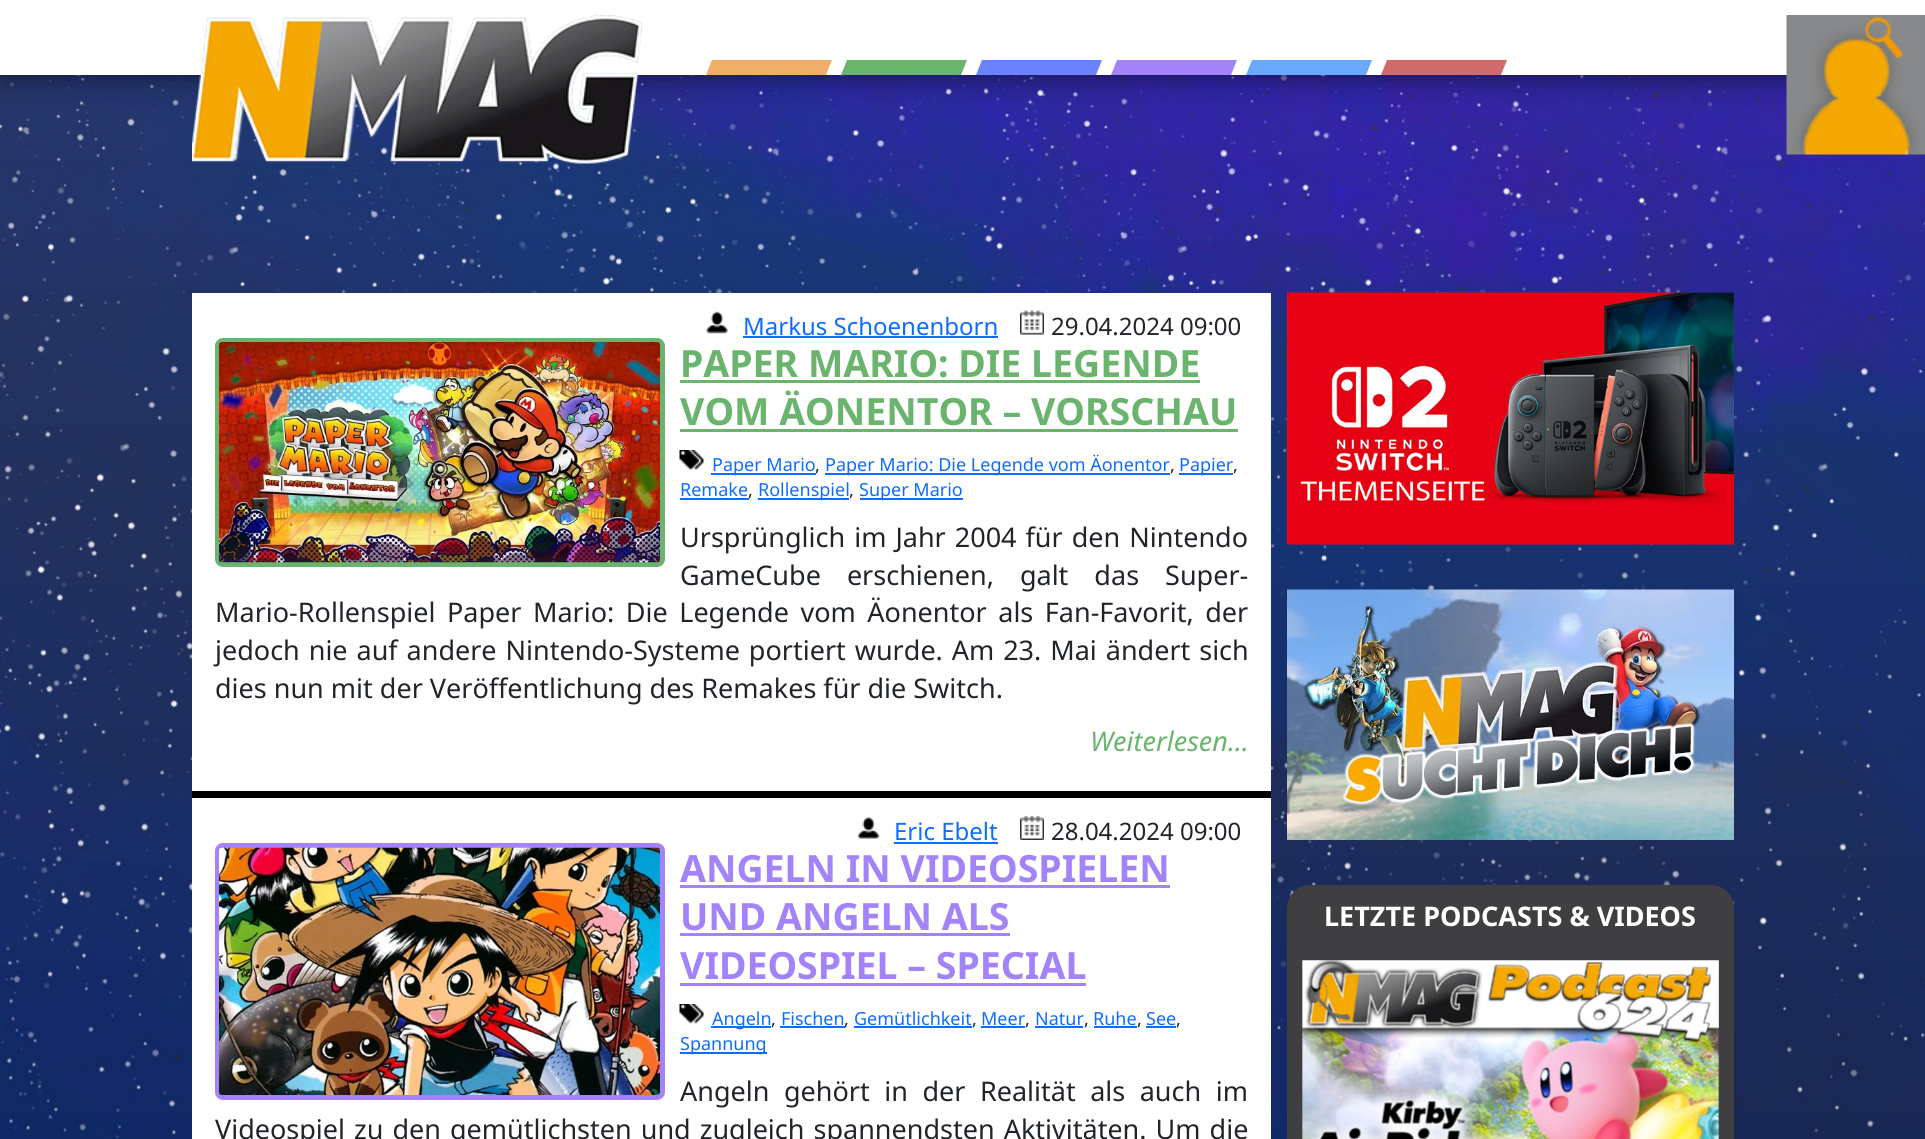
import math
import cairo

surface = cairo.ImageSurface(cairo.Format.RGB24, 1925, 1139)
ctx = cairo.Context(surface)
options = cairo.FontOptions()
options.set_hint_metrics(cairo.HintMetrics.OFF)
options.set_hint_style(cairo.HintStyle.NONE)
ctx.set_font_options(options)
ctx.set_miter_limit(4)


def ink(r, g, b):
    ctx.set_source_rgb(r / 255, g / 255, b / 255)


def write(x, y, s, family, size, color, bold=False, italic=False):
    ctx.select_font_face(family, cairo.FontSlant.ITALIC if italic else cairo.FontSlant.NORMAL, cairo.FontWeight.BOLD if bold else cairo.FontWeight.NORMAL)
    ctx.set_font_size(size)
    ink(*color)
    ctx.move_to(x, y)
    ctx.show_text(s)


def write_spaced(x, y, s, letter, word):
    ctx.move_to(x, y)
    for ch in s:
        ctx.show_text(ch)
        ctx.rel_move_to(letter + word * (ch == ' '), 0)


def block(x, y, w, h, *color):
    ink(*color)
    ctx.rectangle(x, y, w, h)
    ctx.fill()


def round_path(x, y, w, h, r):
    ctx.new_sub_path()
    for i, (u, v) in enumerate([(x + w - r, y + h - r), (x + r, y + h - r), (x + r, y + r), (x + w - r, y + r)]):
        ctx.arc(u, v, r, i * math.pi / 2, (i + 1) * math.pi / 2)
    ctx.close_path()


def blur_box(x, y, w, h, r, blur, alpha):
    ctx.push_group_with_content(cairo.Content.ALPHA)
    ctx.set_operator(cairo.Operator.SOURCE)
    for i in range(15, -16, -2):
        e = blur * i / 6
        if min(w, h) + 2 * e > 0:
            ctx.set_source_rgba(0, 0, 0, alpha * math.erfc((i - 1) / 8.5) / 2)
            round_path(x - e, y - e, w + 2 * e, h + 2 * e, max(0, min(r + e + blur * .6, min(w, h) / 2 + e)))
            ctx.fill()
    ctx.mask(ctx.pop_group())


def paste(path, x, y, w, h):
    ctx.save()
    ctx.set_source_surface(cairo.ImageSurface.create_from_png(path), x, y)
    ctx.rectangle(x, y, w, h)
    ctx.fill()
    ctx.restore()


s1 = dict(family="Noto Sans", size=24, color=(13, 110, 253))
s2 = dict(family="Noto Sans", size=24, color=(33, 37, 41))
s3 = dict(family="Noto Sans", size=37.5, color=(107, 180, 110), bold=True)
s4 = dict(family="Noto Sans", size=18, color=(13, 110, 253))
s5 = dict(family="Noto Sans", size=18, color=(33, 37, 41))
s6 = dict(family="Noto Sans", size=27, color=(33, 37, 41))
s7 = dict(family="Noto Sans", size=27, color=(107, 180, 110), italic=True)
s8 = dict(family="Noto Sans", size=37.5, color=(162, 131, 250), bold=True)
s9 = dict(family="Noto Sans", size=27, color=(255, 255, 255), bold=True)

ink(255, 255, 255)
ctx.paint()
paste("pic1.png", 0, 75, 1925, 1064)
ink(0, 0, 0)
blur_box(0, 0, 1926, 75, 0, 15, 0.6)
block(0, 0, 1925, 75, 255, 255, 255)
paste("pic2.png", 192, 15, 450, 149)
ink(239, 175, 107)
ctx.new_path()
ctx.move_to(712, 60)
ctx.line_to(832, 60)
ctx.line_to(826, 75)
ctx.line_to(706, 75)
ctx.close_path()
ctx.fill()
ink(107, 180, 110)
ctx.new_path()
ctx.move_to(847, 60)
ctx.line_to(967, 60)
ctx.line_to(961, 75)
ctx.line_to(841, 75)
ctx.close_path()
ctx.fill()
ink(107, 130, 255)
ctx.new_path()
ctx.move_to(982, 60)
ctx.line_to(1102, 60)
ctx.line_to(1096, 75)
ctx.line_to(976, 75)
ctx.close_path()
ctx.fill()
ink(162, 131, 250)
ctx.new_path()
ctx.move_to(1117, 60)
ctx.line_to(1237, 60)
ctx.line_to(1231, 75)
ctx.line_to(1111, 75)
ctx.close_path()
ctx.fill()
ink(107, 168, 255)
ctx.new_path()
ctx.move_to(1252, 60)
ctx.line_to(1372, 60)
ctx.line_to(1366, 75)
ctx.line_to(1246, 75)
ctx.close_path()
ctx.fill()
ink(207, 107, 107)
ctx.new_path()
ctx.move_to(1387, 60)
ctx.line_to(1507, 60)
ctx.line_to(1501, 75)
ctx.line_to(1381, 75)
ctx.close_path()
ctx.fill()
paste("pic3.png", 1786, 15, 139, 140)
paste("pic4.png", 1864, 16, 40, 43)
block(192, 293, 1079, 498, 255, 255, 255)
block(192, 791, 1079, 7, 0, 0, 0)
paste("pic5.png", 706, 311, 22, 23)
write(743, 335, "Markus Schoenenborn", **s1)
block(743, 336, 255, 2, 13, 110, 253)
paste("pic6.png", 1020, 310, 24, 25)
write(1051, 335, "29.04.2024 09:00", **s2)
round_path(217.5, 340.5, 445, 224, 5.5)
ink(107, 180, 110)
ctx.set_line_width(5)
ctx.stroke()
paste("pic7.png", 219, 342, 441, 221)
write(680, 377, "PAPER MARIO: DIE LEGENDE", **s3)
block(680, 380, 520, 3, 107, 180, 110)
write(680, 425, "VOM ÄONENTOR – VORSCHAU", **s3)
block(680, 429, 558, 3, 107, 180, 110)
paste("pic8.png", 679, 450, 25, 20)
block(711, 473, 105, 2, 13, 110, 253)
write(712, 471, "Paper Mario", **s4)
write(815, 471, ",", **s5)
block(825, 473, 345, 2, 13, 110, 253)
write(825, 471, "Paper Mario: Die Legende vom Äonentor", **s4)
write(1170, 471, ",", **s5)
block(1179, 473, 54, 2, 13, 110, 253)
write(1179, 471, "Papier", **s4)
write(1233, 471, ",", **s5)
write(680, 496, "Remake", **s4)
block(680, 498, 69, 2, 13, 110, 253)
write(748, 496, ",", **s5)
block(758, 498, 91, 2, 13, 110, 253)
write(758, 496, "Rollenspiel", **s4)
write(849, 496, ",", **s5)
block(860, 498, 103, 2, 13, 110, 253)
write(859, 496, "Super Mario", **s4)
ctx.set_font_size(27)
ink(33, 37, 41)
write_spaced(680, 547, "Ursprünglich im Jahr 2004 für den Nintendo", 0, 2)
write_spaced(680, 585, "GameCube erschienen, galt das Super-", 0, 19)
write_spaced(215, 622, "Mario-Rollenspiel Paper Mario: Die Legende vom Äonentor als Fan-Favorit, der", 0, 4.5)
write_spaced(215, 660, "jedoch nie auf andere Nintendo-Systeme portiert wurde. Am 23. Mai ändert sich", 0, 1.9)
write(215, 698, "dies nun mit der Veröffentlichung des Remakes für die Switch.", **s6)
write(1090, 751, "Weiterlesen…", **s7)
block(192, 798, 1079, 341, 255, 255, 255)
paste("pic9.png", 857, 817, 23, 22)
write(894, 840, "Eric Ebelt", **s1)
block(894, 842, 104, 2, 13, 110, 253)
paste("pic10.png", 1020, 816, 24, 24)
write(1051, 840, "28.04.2024 09:00", **s2)
round_path(217.5, 845.5, 445, 252, 5.5)
ink(162, 131, 250)
ctx.stroke()
paste("pic11.png", 219, 847, 441, 248)
write(680, 882, "ANGELN IN VIDEOSPIELEN", **s8)
block(680, 885, 490, 3, 162, 131, 250)
write(680, 930, "UND ANGELN ALS", **s8)
block(680, 933, 330, 3, 162, 131, 250)
write(680, 979, "VIDEOSPIEL – SPECIAL", **s8)
block(680, 983, 406, 3, 162, 131, 250)
paste("pic12.png", 679, 1004, 25, 20)
block(711, 1026, 60, 2, 13, 110, 253)
write(712, 1025, "Angeln", **s4)
write(771, 1025, ",", **s5)
write(781, 1025, "Fischen", **s4)
block(780, 1026, 65, 2, 13, 110, 253)
write(844, 1025, ",", **s5)
write(854, 1025, "Gemütlichkeit", **s4)
block(854, 1026, 118, 2, 13, 110, 253)
write(972, 1025, ",", **s5)
write(981, 1025, "Meer", **s4)
block(981, 1026, 44, 2, 13, 110, 253)
write(1025, 1025, ",", **s5)
write(1035, 1025, "Natur", **s4)
block(1035, 1026, 48, 2, 13, 110, 253)
write(1084, 1025, ",", **s5)
write(1093, 1025, "Ruhe", **s4)
block(1094, 1026, 43, 2, 13, 110, 253)
write(1137, 1025, ",", **s5)
write(1146, 1025, "See", **s4)
block(1146, 1026, 30, 2, 13, 110, 253)
write(1176, 1025, ",", **s5)
block(680, 1052, 87, 2, 13, 110, 253)
write(680, 1050, "Spannung", **s4)
ctx.set_font_size(27)
ink(33, 37, 41)
write_spaced(680, 1101, "Angeln gehört in der Realität als auch im", 0, 7.5)
write_spaced(215, 1139, "Videospiel zu den gemütlichsten und zugleich spannendsten Aktivitäten. Um die", 0, 2)
paste("pic13.png", 1287, 292, 447, 253)
paste("pic14.png", 1287, 589, 447, 251)
ink(63, 62, 65)
round_path(1287, 885, 447, 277, 23)
ctx.fill()
write(1324, 926, "LETZTE PODCASTS & VIDEOS", **s9)
paste("pic15.png", 1302, 960, 417, 179)
paste("pic16.png", 1718, 960, 1, 179)
surface.write_to_png("screenshot.png")
